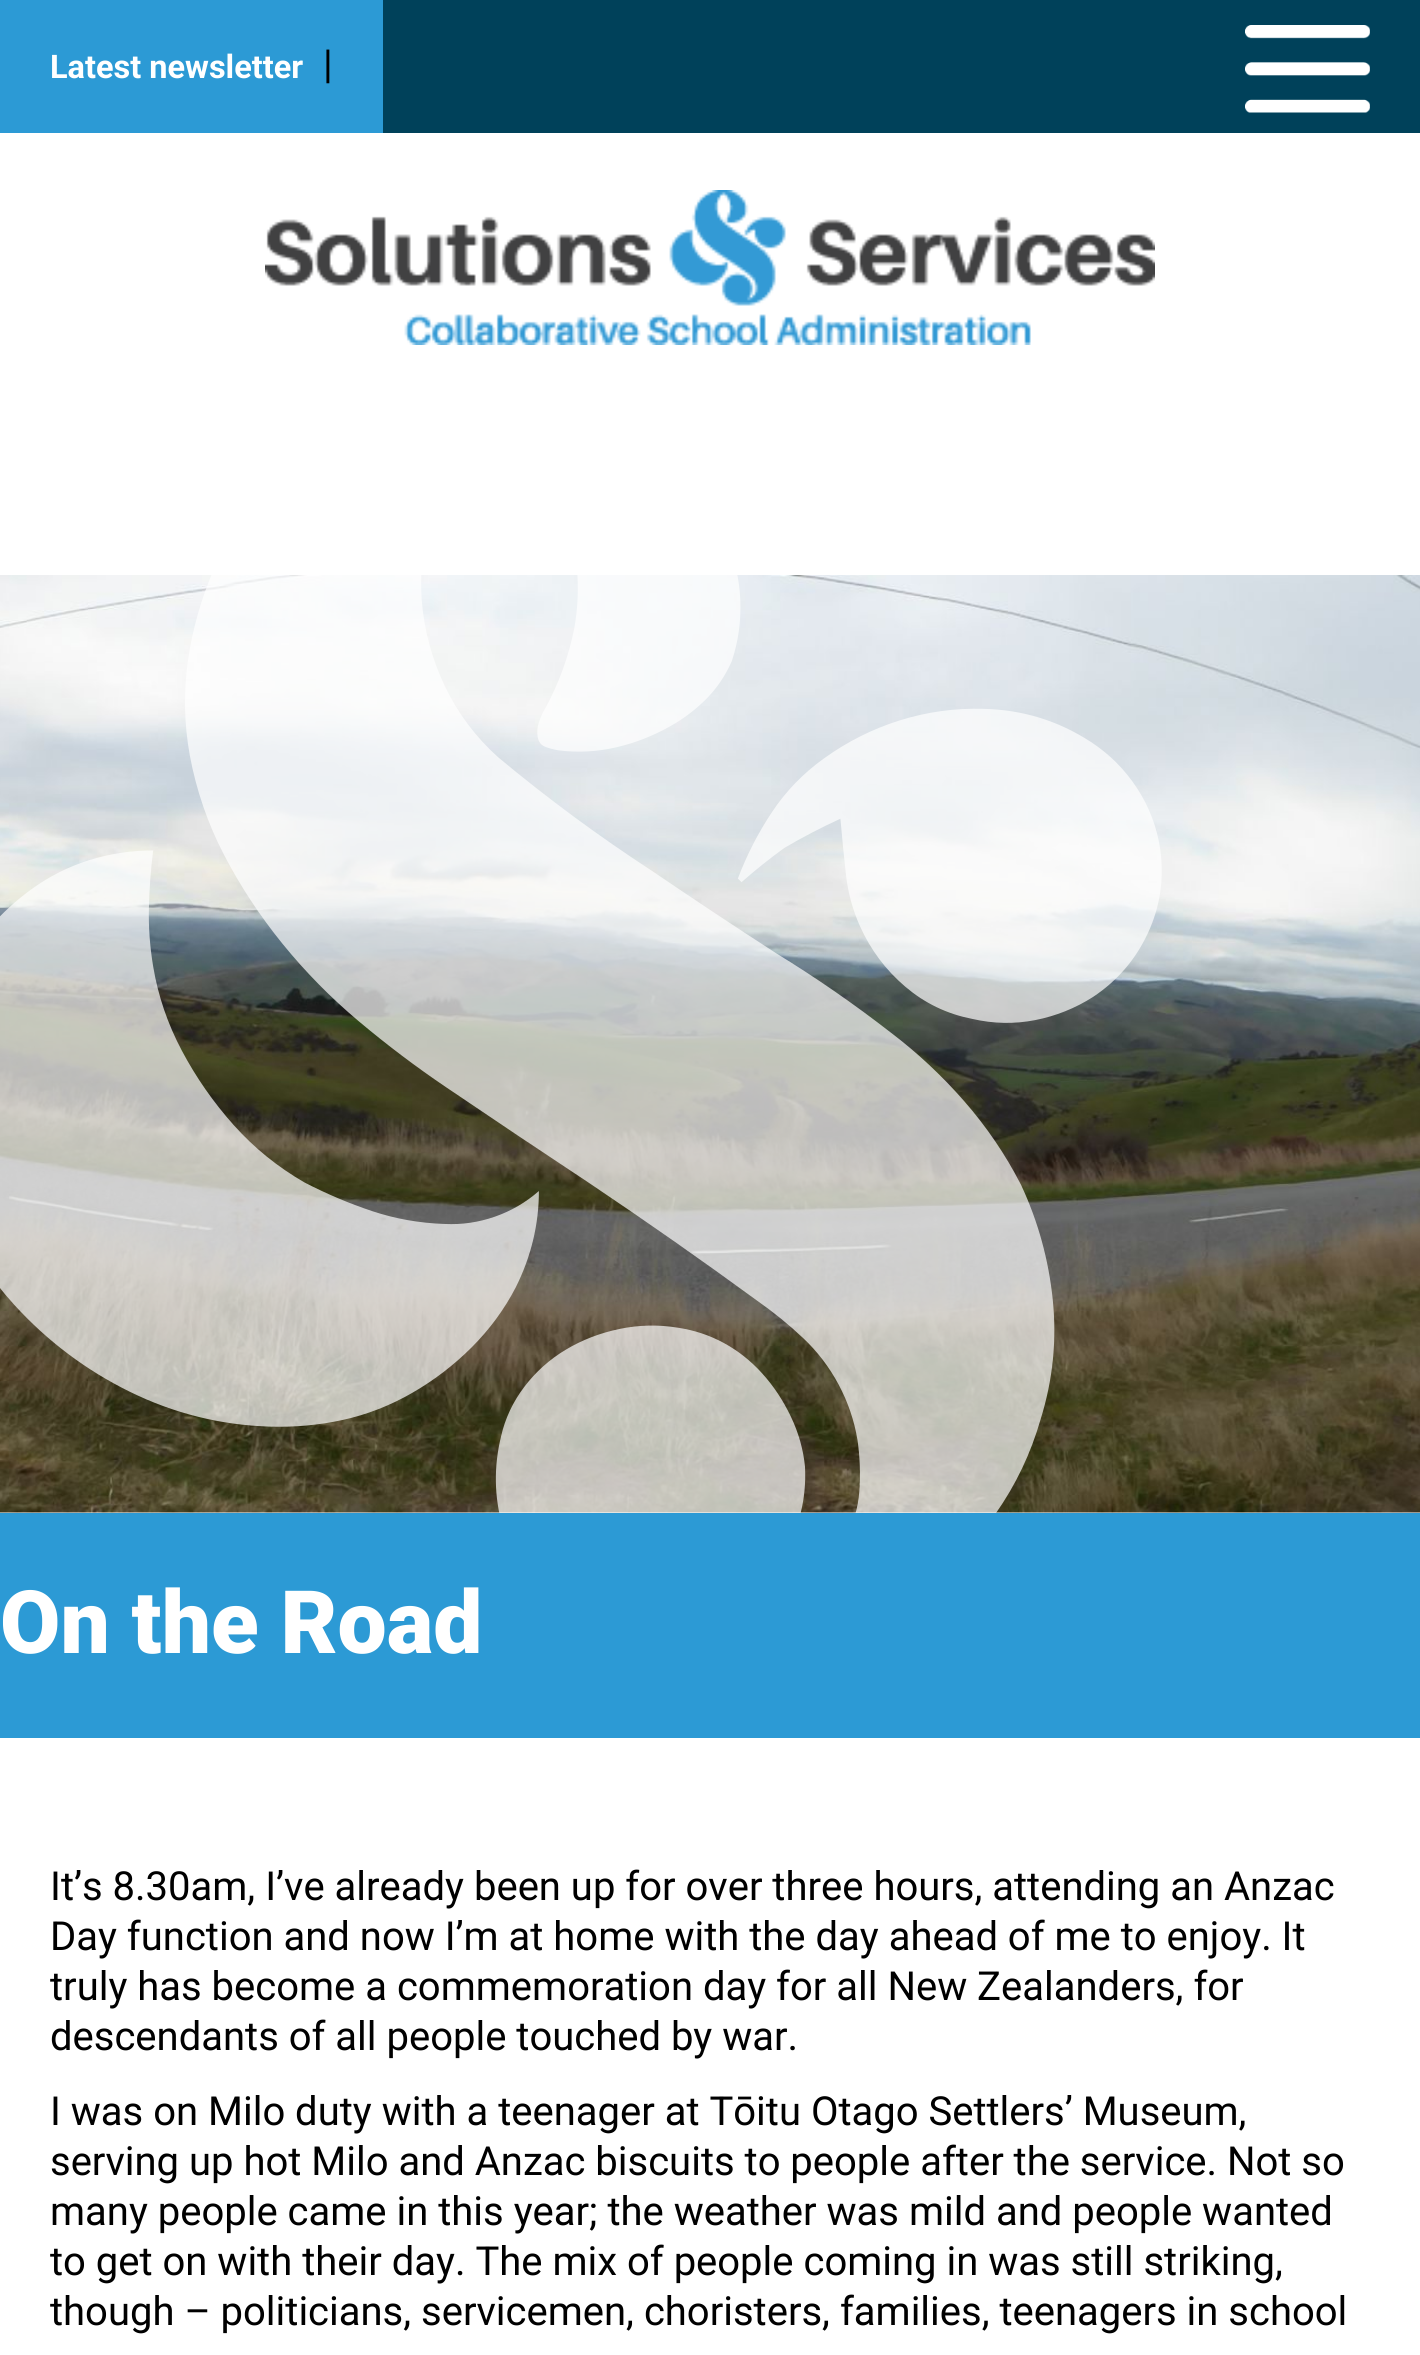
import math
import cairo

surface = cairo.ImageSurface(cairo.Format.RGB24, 1420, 2355)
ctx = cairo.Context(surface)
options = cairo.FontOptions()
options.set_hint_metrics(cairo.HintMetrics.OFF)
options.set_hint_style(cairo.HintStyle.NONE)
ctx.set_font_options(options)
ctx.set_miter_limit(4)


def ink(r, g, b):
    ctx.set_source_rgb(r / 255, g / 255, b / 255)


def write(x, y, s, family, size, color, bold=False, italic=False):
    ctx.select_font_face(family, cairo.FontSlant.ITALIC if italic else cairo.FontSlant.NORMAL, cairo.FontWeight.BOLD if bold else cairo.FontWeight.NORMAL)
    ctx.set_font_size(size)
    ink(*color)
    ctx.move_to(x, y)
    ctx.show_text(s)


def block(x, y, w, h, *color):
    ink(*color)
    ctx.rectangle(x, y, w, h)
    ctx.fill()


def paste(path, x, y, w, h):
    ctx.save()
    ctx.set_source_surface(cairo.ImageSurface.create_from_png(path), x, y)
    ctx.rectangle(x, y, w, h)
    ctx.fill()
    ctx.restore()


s1 = dict(family="Roboto", size=32.5, color=(255, 255, 255), bold=True)
s2 = dict(family="Roboto", size=40, color=(0, 0, 0))
s3 = dict(family="Roboto Black", size=87.5, color=(255, 255, 255))

ink(255, 255, 255)
ctx.paint()
block(383, 0, 1037, 133, 0, 65, 90)
block(0, 0, 383, 133, 44, 154, 213)
write(50, 78, "Latest newsletter", **s1)
write(323, 78, "|", **s2)
paste("pic1.png", 1245, 25, 125, 88)
paste("pic2.png", 265, 190, 890, 155)
paste("pic3.png", 0, 575, 1420, 938)
paste("pic4.png", 0, 575, 1162, 938)
block(0, 1513, 1420, 225, 44, 154, 213)
write(0, 1653, "On the Road", **s3)
write(50, 1900, "It’s 8.30am, I’ve already been up for over three hours, attending an Anzac", **s2)
write(50, 1950, "Day function and now I’m at home with the day ahead of me to enjoy. It", **s2)
write(50, 2000, "truly has become a commemoration day for all New Zealanders, for", **s2)
write(50, 2050, "descendants of all people touched by war.", **s2)
write(50, 2125, "I was on Milo duty with a teenager at Tōitu Otago Settlers’ Museum,", **s2)
write(50, 2175, "serving up hot Milo and Anzac biscuits to people after the service. Not so", **s2)
write(50, 2225, "many people came in this year; the weather was mild and people wanted", **s2)
write(50, 2275, "to get on with their day. The mix of people coming in was still striking,", **s2)
write(50, 2325, "though – politicians, servicemen, choristers, families, teenagers in school", **s2)
surface.write_to_png("screenshot.png")
